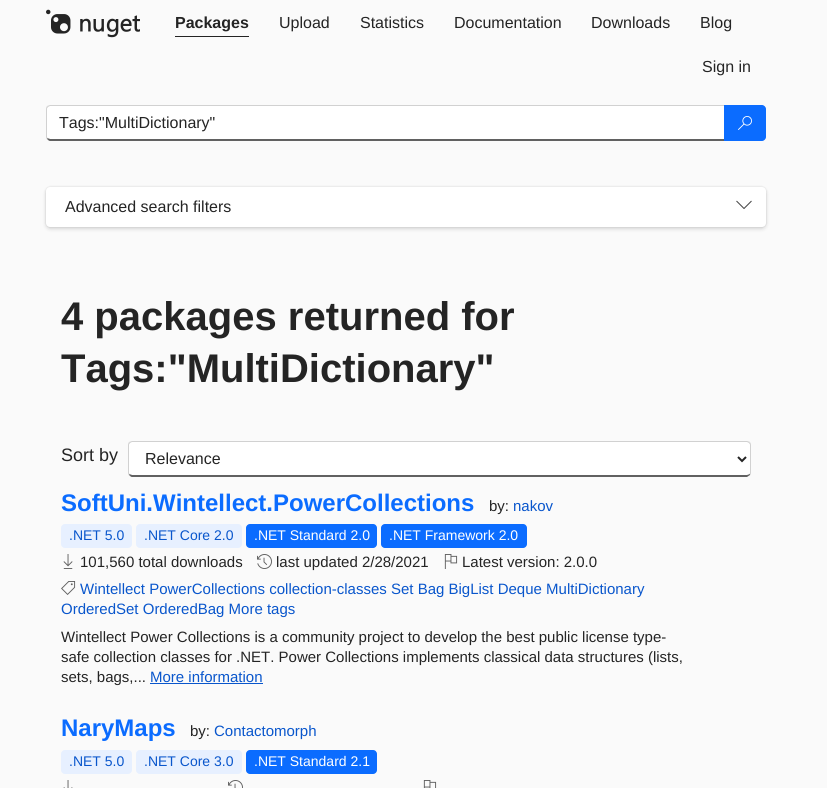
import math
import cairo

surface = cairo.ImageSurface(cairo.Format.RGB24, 827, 788)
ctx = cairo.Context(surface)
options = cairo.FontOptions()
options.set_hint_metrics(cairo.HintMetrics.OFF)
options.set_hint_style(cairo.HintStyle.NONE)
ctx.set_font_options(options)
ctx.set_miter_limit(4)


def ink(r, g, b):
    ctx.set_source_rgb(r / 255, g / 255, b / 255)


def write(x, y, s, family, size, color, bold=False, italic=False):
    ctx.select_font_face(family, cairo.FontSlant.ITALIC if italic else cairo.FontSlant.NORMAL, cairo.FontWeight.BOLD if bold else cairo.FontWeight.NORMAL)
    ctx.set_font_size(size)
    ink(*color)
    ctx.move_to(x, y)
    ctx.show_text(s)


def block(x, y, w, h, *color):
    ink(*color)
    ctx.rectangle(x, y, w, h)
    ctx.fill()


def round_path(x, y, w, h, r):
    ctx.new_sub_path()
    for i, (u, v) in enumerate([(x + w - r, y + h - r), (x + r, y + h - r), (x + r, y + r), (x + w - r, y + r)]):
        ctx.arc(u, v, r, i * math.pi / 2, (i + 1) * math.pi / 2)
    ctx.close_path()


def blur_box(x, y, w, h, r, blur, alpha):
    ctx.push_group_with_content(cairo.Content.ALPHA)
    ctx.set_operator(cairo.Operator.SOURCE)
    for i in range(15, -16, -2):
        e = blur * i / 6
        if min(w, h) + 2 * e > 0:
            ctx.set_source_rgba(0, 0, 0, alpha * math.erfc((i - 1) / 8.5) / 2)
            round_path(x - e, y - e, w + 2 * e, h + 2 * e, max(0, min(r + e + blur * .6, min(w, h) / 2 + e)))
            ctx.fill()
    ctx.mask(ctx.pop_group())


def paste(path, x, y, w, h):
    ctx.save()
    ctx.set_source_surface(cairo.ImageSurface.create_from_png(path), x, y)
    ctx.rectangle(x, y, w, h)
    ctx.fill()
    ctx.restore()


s1 = dict(family="Liberation Sans", size=16, color=(36, 36, 36), bold=True)
s2 = dict(family="Liberation Sans", size=16, color=(36, 36, 36))
s3 = dict(family="Liberation Sans", size=40, color=(36, 36, 36), bold=True)
s4 = dict(family="Liberation Sans", size=18, color=(36, 36, 36))
s5 = dict(family="Liberation Sans", size=24, color=(11, 108, 255), bold=True)
s6 = dict(family="Liberation Sans", size=15, color=(36, 36, 36))
s7 = dict(family="Liberation Sans", size=15, color=(9, 86, 204))
s8 = dict(family="Liberation Sans", size=14, color=(9, 86, 204))
s9 = dict(family="Liberation Sans", size=14, color=(255, 255, 255))

ink(250, 250, 250)
ctx.paint()
paste("pic1.png", 46, 9, 94, 29)
write(175, 28, "Packages", **s1)
block(175, 36, 74, 1, 36, 36, 36)
write(279, 28, "Upload", **s2)
write(360, 28, "Statistics", **s2)
write(454, 28, "Documentation", **s2)
write(591, 28, "Downloads", **s2)
write(700, 28, "Blog", **s2)
write(702, 72, "Sign in", **s2)
ink(255, 255, 255)
ctx.new_path()
ctx.move_to(50, 106)
ctx.line_to(724, 106)
ctx.line_to(724, 139)
ctx.line_to(50, 139)
ctx.curve_to(48, 139, 47, 138, 47, 137)
ctx.line_to(47, 109)
ctx.curve_to(47, 107, 48, 106, 50, 106)
ctx.close_path()
ctx.fill()
ink(209, 209, 209)
ctx.new_path()
ctx.move_to(50, 105)
ctx.line_to(47, 106)
ctx.line_to(48, 107)
ctx.line_to(50, 106)
ctx.line_to(724, 106)
ctx.line_to(725, 105)
ctx.close_path()
ctx.fill()
ink(97, 97, 97)
ctx.new_path()
ctx.move_to(725, 141)
ctx.line_to(724, 139)
ctx.line_to(50, 139)
ctx.line_to(47, 138)
ctx.line_to(47, 139)
ctx.curve_to(48, 140, 49, 141, 50, 141)
ctx.close_path()
ctx.fill()
ink(209, 209, 209)
ctx.new_path()
ctx.move_to(46, 109)
ctx.line_to(46, 137)
ctx.curve_to(46, 138, 46.5, 138.5, 47, 139.5)
ctx.line_to(47.5, 138)
ctx.line_to(47, 137)
ctx.line_to(47, 108.5)
ctx.line_to(48, 107)
ctx.line_to(47, 106)
ctx.curve_to(46.5, 107, 46, 108, 46, 109)
ctx.close_path()
ctx.fill()
write(59, 128, "Tags:\"MultiDictionary\"", **s2)
ink(11, 108, 255)
ctx.new_path()
ctx.move_to(724, 105)
ctx.line_to(762, 105)
ctx.curve_to(764, 105, 766, 107, 766, 109)
ctx.line_to(766, 137)
ctx.curve_to(766, 139, 764, 141, 762, 141)
ctx.line_to(724, 141)
ctx.close_path()
ctx.fill()
paste("pic2.png", 738, 116, 14, 14)
ink(0, 0, 0)
blur_box(46, 189, 720, 40, 4, 2, 0.14)
blur_box(46, 187, 720, 40, 4, 1, 0.12)
ink(255, 255, 255)
round_path(46, 187, 720, 40, 4)
ctx.fill()
write(65, 212, "Advanced search filters", **s2)
paste("pic3.png", 736, 200, 16, 9)
write(61, 330, "4 packages returned for", **s3)
write(61, 382, "Tags:\"MultiDictionary\"", **s3)
write(61, 461, "Sort by", **s4)
ink(255, 255, 255)
ctx.new_path()
ctx.move_to(132, 442)
ctx.line_to(747, 442)
ctx.curve_to(749, 442, 750, 443, 750, 445)
ctx.line_to(750, 473)
ctx.curve_to(750, 474, 749, 475, 747, 475)
ctx.line_to(132, 475)
ctx.curve_to(130, 475, 129, 474, 129, 473)
ctx.line_to(129, 445)
ctx.curve_to(129, 443, 130, 442, 132, 442)
ctx.close_path()
ctx.fill()
ink(209, 209, 209)
ctx.new_path()
ctx.move_to(132, 441)
ctx.line_to(129, 442)
ctx.line_to(130, 443)
ctx.line_to(132, 442)
ctx.line_to(747, 442)
ctx.line_to(749, 443)
ctx.line_to(750, 442)
ctx.line_to(747, 441)
ctx.close_path()
ctx.fill()
ctx.new_path()
ctx.move_to(751, 473)
ctx.line_to(751, 445)
ctx.curve_to(751, 444, 750.5, 443, 750, 442)
ctx.line_to(749, 443)
ctx.line_to(750, 444.5)
ctx.line_to(750, 473)
ctx.line_to(749.5, 474)
ctx.line_to(750, 475.5)
ctx.curve_to(750.5, 474.5, 751, 474, 751, 473)
ctx.close_path()
ctx.fill()
ink(97, 97, 97)
ctx.new_path()
ctx.move_to(132, 477)
ctx.line_to(747, 477)
ctx.line_to(750, 475)
ctx.line_to(750, 474)
ctx.line_to(747, 475)
ctx.line_to(132, 475)
ctx.line_to(129, 474)
ctx.line_to(129, 475)
ctx.curve_to(130, 476, 131, 477, 132, 477)
ctx.close_path()
ctx.fill()
ink(209, 209, 209)
ctx.new_path()
ctx.move_to(128, 445)
ctx.line_to(128, 473)
ctx.curve_to(128, 474, 128.5, 474.5, 129, 475.5)
ctx.line_to(129.5, 474)
ctx.line_to(129, 473)
ctx.line_to(129, 444.5)
ctx.line_to(130, 443)
ctx.line_to(129, 442)
ctx.curve_to(128.5, 443, 128, 444, 128, 445)
ctx.close_path()
ctx.fill()
ctx.new_path()
ctx.move_to(738, 457)
ctx.line_to(742, 461)
ctx.line_to(746, 457)
ink(36, 36, 36)
ctx.stroke()
write(145, 464, "Relevance", **s2)
write(61, 511, "SoftUni.Wintellect.PowerCollections", **s5)
write(489, 511, "by:", **s6)
write(513, 511, "nakov", **s7)
ink(231, 240, 255)
round_path(61, 524, 71, 24, 4)
ctx.fill()
write(69, 540, ".NET 5.0", **s8)
ink(231, 240, 255)
round_path(136, 524, 106, 24, 4)
ctx.fill()
write(144, 540, ".NET Core 2.0", **s8)
ink(11, 108, 255)
round_path(246, 524, 131, 24, 4)
ctx.fill()
write(254, 540, ".NET Standard 2.0", **s9)
ink(11, 108, 255)
round_path(381, 524, 146, 24, 4)
ctx.fill()
write(389, 540, ".NET Framework 2.0", **s9)
paste("pic4.png", 63, 554, 10, 15)
write(80, 567, "101,560 total downloads", **s6)
paste("pic5.png", 257, 554, 15, 15)
write(276, 567, "last updated 2/28/2021", **s6)
paste("pic6.png", 444, 554, 14, 15)
write(462, 567, "Latest version: 2.0.0", **s6)
paste("pic7.png", 61, 581, 15, 14)
write(80, 594, "Wintellect PowerCollections collection-classes Set Bag BigList Deque MultiDictionary", **s7)
write(61, 614, "OrderedSet OrderedBag More tags", **s7)
write(61, 642, "Wintellect Power Collections is a community project to develop the best public license type-", **s6)
write(61, 662, "safe collection classes for .NET. Power Collections implements classical data structures (lists,", **s6)
write(61, 682, "sets, bags,...", **s6)
write(150, 682, "More information", **s7)
block(150, 683, 113, 1, 9, 86, 204)
write(61, 736, "NaryMaps", **s5)
write(190, 736, "by:", **s6)
write(214, 736, "Contactomorph", **s7)
ink(231, 240, 255)
round_path(61, 750, 71, 24, 4)
ctx.fill()
write(69, 766, ".NET 5.0", **s8)
ink(231, 240, 255)
round_path(136, 750, 106, 24, 4)
ctx.fill()
write(144, 766, ".NET Core 3.0", **s8)
ink(11, 108, 255)
round_path(246, 750, 131, 24, 4)
ctx.fill()
write(254, 766, ".NET Standard 2.1", **s9)
paste("pic8.png", 63, 780, 10, 8)
paste("pic9.png", 228, 780, 15, 8)
paste("pic10.png", 423, 780, 14, 8)
surface.write_to_png("screenshot.png")
